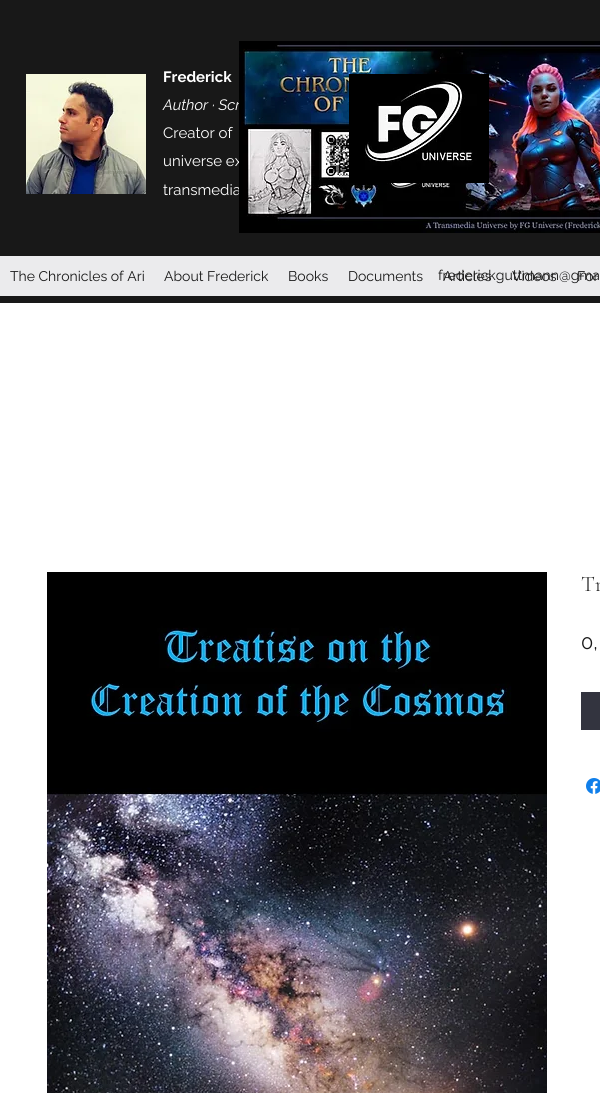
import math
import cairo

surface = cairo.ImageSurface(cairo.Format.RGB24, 600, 1093)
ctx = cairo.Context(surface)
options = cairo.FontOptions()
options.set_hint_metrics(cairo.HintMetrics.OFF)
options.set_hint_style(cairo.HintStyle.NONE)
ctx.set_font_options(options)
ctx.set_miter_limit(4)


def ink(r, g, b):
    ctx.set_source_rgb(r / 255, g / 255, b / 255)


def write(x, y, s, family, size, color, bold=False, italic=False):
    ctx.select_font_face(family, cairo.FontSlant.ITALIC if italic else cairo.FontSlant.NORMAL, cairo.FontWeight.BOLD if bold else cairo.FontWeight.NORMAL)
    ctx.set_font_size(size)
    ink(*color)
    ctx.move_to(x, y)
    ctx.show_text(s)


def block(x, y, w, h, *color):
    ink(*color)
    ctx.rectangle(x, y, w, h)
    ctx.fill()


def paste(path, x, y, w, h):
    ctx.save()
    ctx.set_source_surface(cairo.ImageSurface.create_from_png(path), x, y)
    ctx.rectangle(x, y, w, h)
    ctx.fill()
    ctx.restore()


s1 = dict(family="Raleway", size=15, color=(255, 255, 255), bold=True)
s2 = dict(family="Raleway", size=15, color=(255, 255, 255), italic=True)
s3 = dict(family="Raleway", size=15, color=(255, 255, 255))
s4 = dict(family="Raleway", size=14, color=(24, 24, 24))
s5 = dict(family="Cormorant Garamond Light", size=22, color=(24, 24, 24))
s6 = dict(family="Raleway", size=20, color=(24, 24, 24))

ink(255, 255, 255)
ctx.paint()
block(0, 0, 600, 303, 24, 24, 24)
paste("pic1.png", 26, 74, 120, 120)
write(163, 82, "Frederick", **s1)
write(163, 110, "Author · Scr", **s2)
write(163, 138, "Creator of", **s3)
write(163, 166, "universe ex", **s3)
write(163, 195, "transmedia", **s3)
paste("pic2.png", 239, 41, 361, 192)
paste("pic3.png", 349, 74, 140, 109)
block(0, 256, 600, 40, 235, 235, 237)
write(443, 281, "Articles", **s4)
write(512, 281, "Videos", **s4)
write(577, 281, "For", **s4)
write(438, 280, "frederickguttmann@gma", **s4)
write(10, 281, "The Chronicles of Ari", **s4)
write(164, 281, "About Frederick", **s4)
write(288, 281, "Books", **s4)
write(348, 281, "Documents", **s4)
paste("pic4.png", 47, 572, 500, 521)
write(581, 591, "Tr", **s5)
write(581, 649, "0,", **s6)
block(581, 692, 19, 38, 51, 52, 63)
paste("pic5.png", 586, 778, 14, 16)
surface.write_to_png("screenshot.png")
